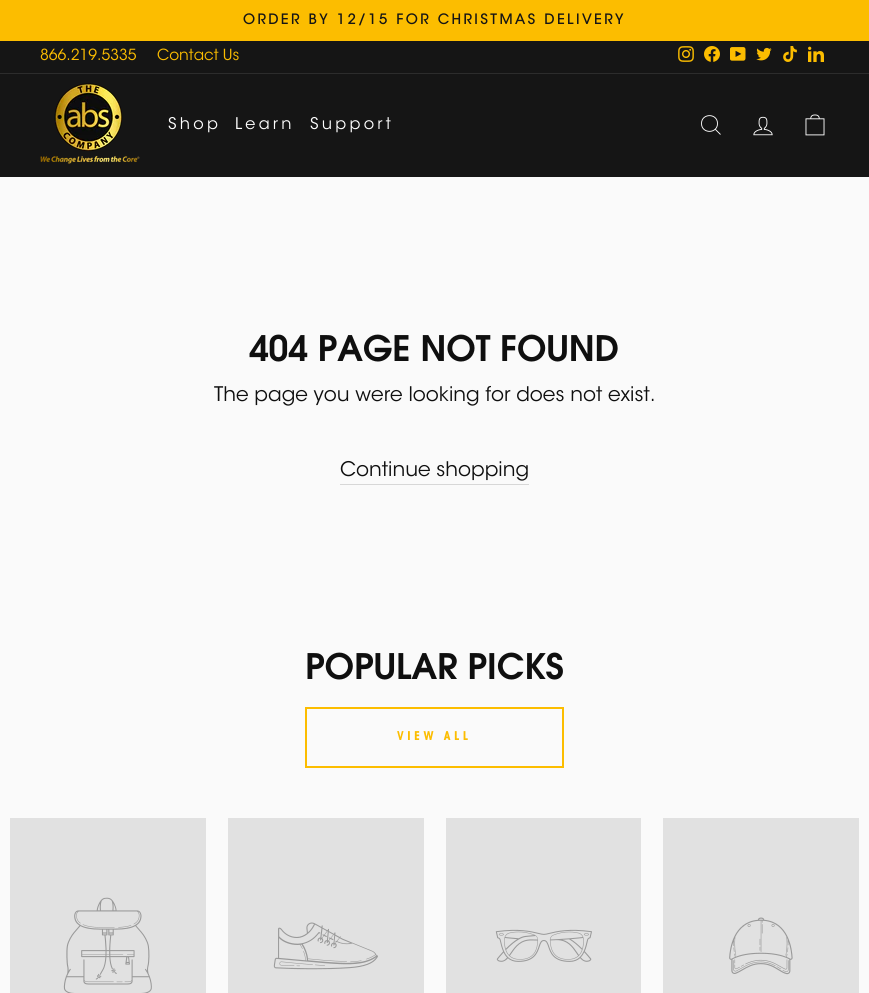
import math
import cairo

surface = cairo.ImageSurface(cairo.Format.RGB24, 869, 993)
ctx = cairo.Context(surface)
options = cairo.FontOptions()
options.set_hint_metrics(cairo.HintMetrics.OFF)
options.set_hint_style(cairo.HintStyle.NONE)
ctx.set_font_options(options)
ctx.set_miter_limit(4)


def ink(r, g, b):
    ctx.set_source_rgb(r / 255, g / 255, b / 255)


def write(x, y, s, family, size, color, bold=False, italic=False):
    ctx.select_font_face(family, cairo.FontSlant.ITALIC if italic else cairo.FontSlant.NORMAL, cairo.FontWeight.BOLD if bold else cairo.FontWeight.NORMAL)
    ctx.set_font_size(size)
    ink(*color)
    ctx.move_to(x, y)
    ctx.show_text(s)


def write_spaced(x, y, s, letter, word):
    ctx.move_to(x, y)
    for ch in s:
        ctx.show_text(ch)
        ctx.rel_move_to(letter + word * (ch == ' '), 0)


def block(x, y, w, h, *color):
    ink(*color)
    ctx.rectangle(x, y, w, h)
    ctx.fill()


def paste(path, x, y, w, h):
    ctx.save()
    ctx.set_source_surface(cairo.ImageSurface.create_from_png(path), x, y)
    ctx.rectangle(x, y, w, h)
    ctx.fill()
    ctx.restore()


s1 = dict(family="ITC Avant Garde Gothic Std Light", size=15.25, color=(252, 189, 0))
s2 = dict(family="ITC Avant Garde Gothic Std Light", size=20, color=(15, 15, 15))

ink(250, 250, 250)
ctx.paint()
block(0, 0, 869, 41, 252, 189, 0)
ctx.select_font_face("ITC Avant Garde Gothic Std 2", cairo.FontSlant.NORMAL, cairo.FontWeight.BOLD)
ctx.set_font_size(13.75)
ink(21, 21, 21)
write_spaced(243, 24, "ORDER BY 12/15 FOR CHRISTMAS DELIVERY", 2.75, 0)
block(0, 41, 869, 32, 21, 21, 21)
write(40, 60, "866.219.5335", **s1)
write(157, 60, "Contact Us", **s1)
paste("pic1.png", 678, 46, 16, 16)
paste("pic2.png", 704, 46, 16, 16)
paste("pic3.png", 730, 47, 16, 14)
paste("pic4.png", 756, 47, 16, 14)
paste("pic5.png", 783, 46, 14, 16)
paste("pic6.png", 808, 46, 16, 16)
block(0, 74, 869, 103, 21, 21, 21)
block(0, 73, 869, 1, 44, 44, 44)
paste("pic7.png", 40, 83, 100, 81)
ctx.set_font_size(16)
ink(255, 255, 255)
write_spaced(168, 129, "Shop", 3.25, 0)
write_spaced(235, 129, "Learn", 3.25, 0)
write_spaced(310, 129, "Support", 3.25, 0)
ctx.new_path()
ctx.move_to(717.5, 123.5)
ctx.curve_to(717.5, 134, 701.5, 134, 701.5, 123.5)
ctx.curve_to(701.5, 113, 717.5, 113, 717.5, 123.5)
ctx.close_path()
ctx.move_to(720.5, 134.5)
ctx.line_to(715.5, 129.5)
ctx.set_line_width(0.9)
ctx.stroke()
paste("pic8.png", 753, 116, 20, 20)
paste("pic9.png", 805, 114, 20, 22)
paste("pic10.png", 249, 334, 369, 28)
write(214, 401, "The page you were looking for does not exist.", **s2)
block(340, 484, 189, 1, 215, 215, 215)
write(340, 476, "Continue shopping", **s2)
paste("pic11.png", 307, 652, 256, 28)
ctx.rectangle(306, 708, 257, 59)
ink(252, 189, 0)
ctx.set_line_width(2)
ctx.stroke()
ctx.select_font_face("ITC Avant Garde Gothic Std", cairo.FontSlant.NORMAL, cairo.FontWeight.BOLD)
ctx.set_font_size(12)
write_spaced(397, 740, "VIEW ALL", 3.5, 0)
block(10, 818, 196, 175, 225, 225, 225)
paste("pic12.png", 63, 897, 89, 96)
block(228, 818, 196, 175, 225, 225, 225)
paste("pic13.png", 273, 922, 105, 48)
block(446, 818, 195, 175, 225, 225, 225)
paste("pic14.png", 495, 929, 97, 33)
block(663, 818, 196, 175, 225, 225, 225)
paste("pic15.png", 729, 917, 64, 58)
surface.write_to_png("screenshot.png")
